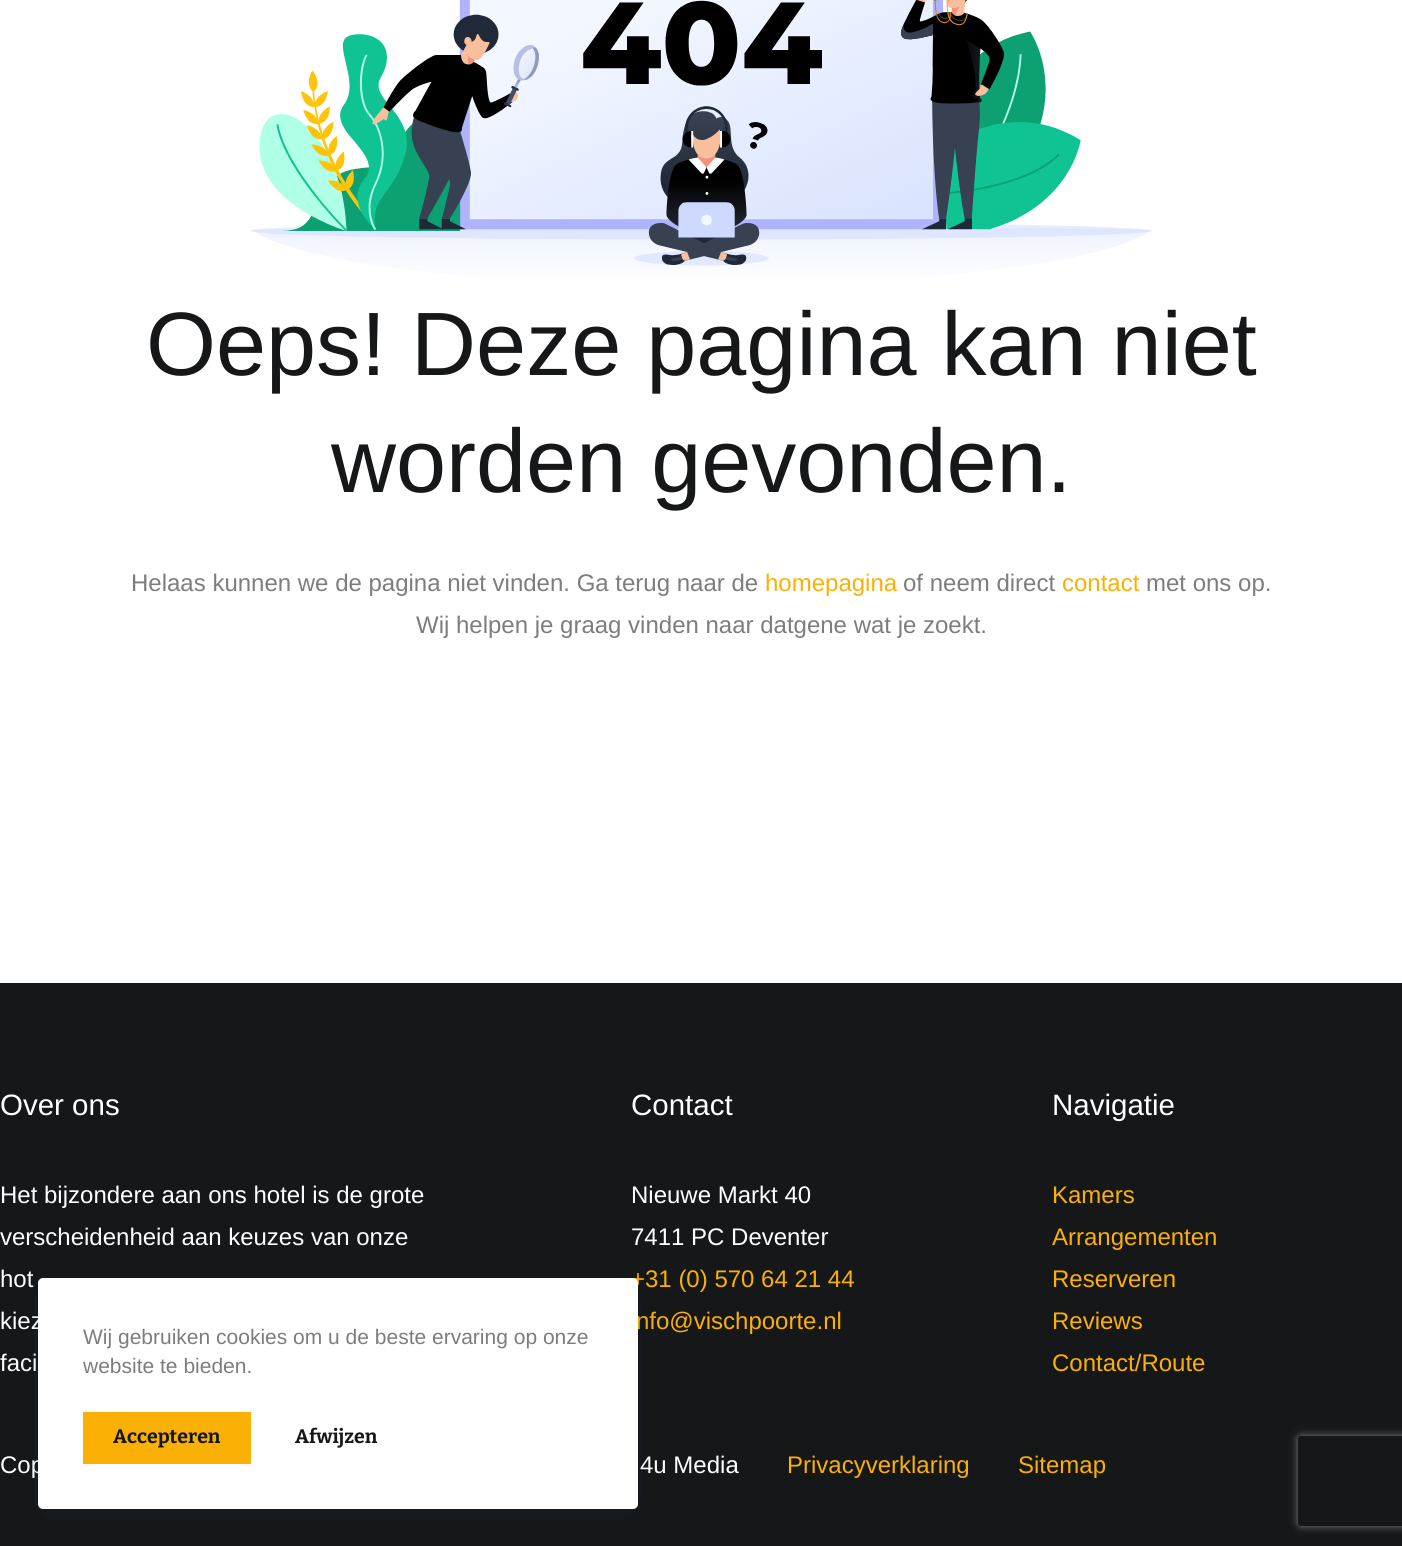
import math
import cairo

surface = cairo.ImageSurface(cairo.Format.RGB24, 1402, 1546)
ctx = cairo.Context(surface)
options = cairo.FontOptions()
options.set_hint_metrics(cairo.HintMetrics.OFF)
options.set_hint_style(cairo.HintStyle.NONE)
ctx.set_font_options(options)
ctx.set_miter_limit(4)


def ink(r, g, b):
    ctx.set_source_rgb(r / 255, g / 255, b / 255)


def write(x, y, s, family, size, color, bold=False, italic=False):
    ctx.select_font_face(family, cairo.FontSlant.ITALIC if italic else cairo.FontSlant.NORMAL, cairo.FontWeight.BOLD if bold else cairo.FontWeight.NORMAL)
    ctx.set_font_size(size)
    ink(*color)
    ctx.move_to(x, y)
    ctx.show_text(s)


def block(x, y, w, h, *color):
    ink(*color)
    ctx.rectangle(x, y, w, h)
    ctx.fill()


def round_path(x, y, w, h, r):
    ctx.new_sub_path()
    for i, (u, v) in enumerate([(x + w - r, y + h - r), (x + r, y + h - r), (x + r, y + r), (x + w - r, y + r)]):
        ctx.arc(u, v, r, i * math.pi / 2, (i + 1) * math.pi / 2)
    ctx.close_path()


def blur_box(x, y, w, h, r, blur, alpha):
    ctx.push_group_with_content(cairo.Content.ALPHA)
    ctx.set_operator(cairo.Operator.SOURCE)
    for i in range(15, -16, -2):
        e = blur * i / 6
        if min(w, h) + 2 * e > 0:
            ctx.set_source_rgba(0, 0, 0, alpha * math.erfc((i - 1) / 8.5) / 2)
            round_path(x - e, y - e, w + 2 * e, h + 2 * e, max(0, min(r + e + blur * .6, min(w, h) / 2 + e)))
            ctx.fill()
    ctx.mask(ctx.pop_group())


def paste(path, x, y, w, h):
    ctx.save()
    ctx.set_source_surface(cairo.ImageSurface.create_from_png(path), x, y)
    ctx.rectangle(x, y, w, h)
    ctx.fill()
    ctx.restore()


s1 = dict(family="Liberation Sans", size=90, color=(21, 23, 24))
s2 = dict(family="Liberation Sans", size=24, color=(125, 125, 124))
s3 = dict(family="Liberation Sans", size=24, color=(250, 176, 5))
s4 = dict(family="Liberation Sans", size=29.5, color=(255, 255, 255))
s5 = dict(family="Liberation Sans", size=24, color=(255, 255, 255))
s6 = dict(family="Liberation Sans", size=21, color=(125, 125, 124))
s7 = dict(family="Bitter", size=19.5, color=(21, 23, 24), bold=True)

ink(255, 255, 255)
ctx.paint()
paste("pic1.png", 251, 0, 901, 278)
write(146, 375, "Oeps! Deze pagina kan niet", **s1)
write(331, 492, "worden gevonden.", **s1)
write(131, 591, "Helaas kunnen we de pagina niet vinden. Ga terug naar de", **s2)
write(765, 591, "homepagina", **s3)
write(903, 591, "of neem direct", **s2)
write(1062, 591, "contact", **s3)
write(1146, 591, "met ons op.", **s2)
write(416, 633, "Wij helpen je graag vinden naar datgene wat je zoekt.", **s2)
block(0, 983, 1402, 563, 21, 23, 24)
write(0, 1115, "Over ons", **s4)
write(0, 1203, "Het bijzondere aan ons hotel is de grote", **s5)
write(0, 1245, "verscheidenheid aan keuzes van onze", **s5)
write(0, 1287, "hot", **s5)
write(0, 1329, "kiez", **s5)
write(0, 1371, "faci", **s5)
write(631, 1115, "Contact", **s4)
write(631, 1203, "Nieuwe Markt 40", **s5)
write(631, 1245, "7411 PC Deventer", **s5)
write(631, 1287, "+31 (0) 570 64 21 44", **s3)
write(636, 1329, "nfo@vischpoorte.nl", **s3)
write(1052, 1115, "Navigatie", **s4)
write(1052, 1203, "Kamers", **s3)
write(1052, 1245, "Arrangementen", **s3)
write(1052, 1287, "Reserveren", **s3)
write(1052, 1329, "Reviews", **s3)
write(1052, 1371, "Contact/Route", **s3)
write(0, 1473, "Cop", **s5)
write(640, 1473, "4u Media", **s5)
write(787, 1473, "Privacyverklaring", **s3)
write(1018, 1473, "Sitemap", **s3)
ink(34, 56, 101)
blur_box(45, 1293, 585, 216, 0, 22.5, 0.15)
ink(255, 255, 255)
round_path(38, 1278, 600, 231, 5)
ctx.fill()
write(83, 1344, "Wij gebruiken cookies om u de beste ervaring op onze", **s6)
write(83, 1373, "website te bieden.", **s6)
block(83, 1412, 168, 52, 250, 176, 5)
write(113, 1443, "Accepteren", **s7)
write(295, 1443, "Afwijzen", **s7)
ctx.save()
ctx.set_fill_rule(cairo.FillRule.EVEN_ODD)
ctx.new_path()
ctx.move_to(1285, 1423)
ctx.line_to(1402, 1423)
ctx.line_to(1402, 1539)
ctx.line_to(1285, 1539)
ctx.close_path()
ctx.move_to(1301, 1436)
ctx.line_to(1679, 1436)
ctx.curve_to(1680.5, 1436, 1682, 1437.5, 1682, 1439)
ctx.line_to(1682, 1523)
ctx.curve_to(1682, 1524.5, 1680.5, 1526, 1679, 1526)
ctx.line_to(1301, 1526)
ctx.curve_to(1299.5, 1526, 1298, 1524.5, 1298, 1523)
ctx.line_to(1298, 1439)
ctx.curve_to(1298, 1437.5, 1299.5, 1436, 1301, 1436)
ctx.close_path()
ctx.clip()
ink(128, 128, 128)
blur_box(1298, 1436, 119, 90, 3, 4, 1)
ctx.restore()
surface.write_to_png("screenshot.png")
